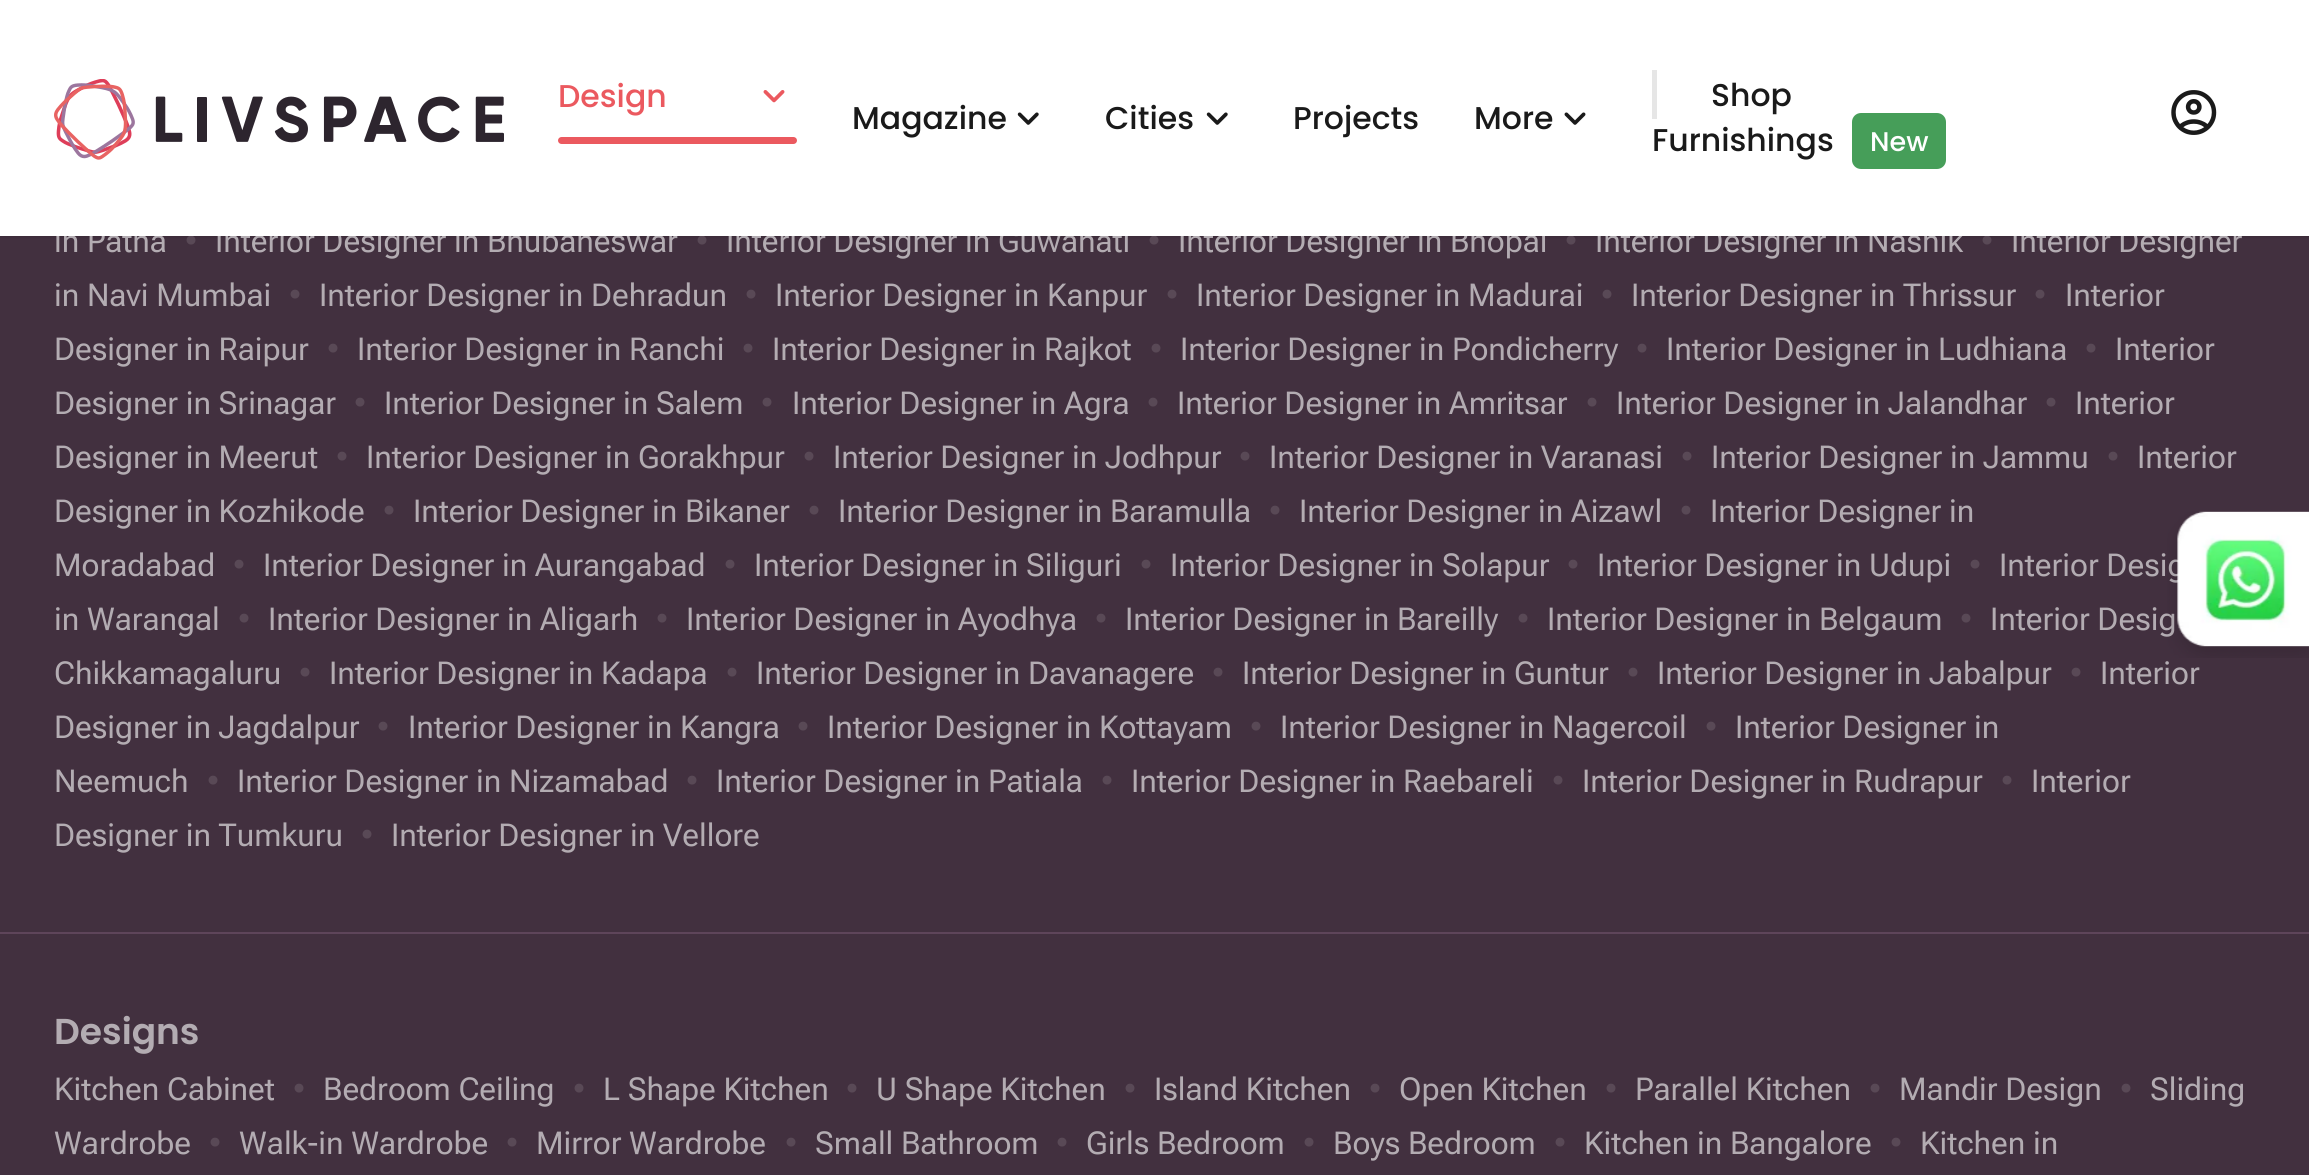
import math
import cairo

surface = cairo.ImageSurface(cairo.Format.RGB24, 2309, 1175)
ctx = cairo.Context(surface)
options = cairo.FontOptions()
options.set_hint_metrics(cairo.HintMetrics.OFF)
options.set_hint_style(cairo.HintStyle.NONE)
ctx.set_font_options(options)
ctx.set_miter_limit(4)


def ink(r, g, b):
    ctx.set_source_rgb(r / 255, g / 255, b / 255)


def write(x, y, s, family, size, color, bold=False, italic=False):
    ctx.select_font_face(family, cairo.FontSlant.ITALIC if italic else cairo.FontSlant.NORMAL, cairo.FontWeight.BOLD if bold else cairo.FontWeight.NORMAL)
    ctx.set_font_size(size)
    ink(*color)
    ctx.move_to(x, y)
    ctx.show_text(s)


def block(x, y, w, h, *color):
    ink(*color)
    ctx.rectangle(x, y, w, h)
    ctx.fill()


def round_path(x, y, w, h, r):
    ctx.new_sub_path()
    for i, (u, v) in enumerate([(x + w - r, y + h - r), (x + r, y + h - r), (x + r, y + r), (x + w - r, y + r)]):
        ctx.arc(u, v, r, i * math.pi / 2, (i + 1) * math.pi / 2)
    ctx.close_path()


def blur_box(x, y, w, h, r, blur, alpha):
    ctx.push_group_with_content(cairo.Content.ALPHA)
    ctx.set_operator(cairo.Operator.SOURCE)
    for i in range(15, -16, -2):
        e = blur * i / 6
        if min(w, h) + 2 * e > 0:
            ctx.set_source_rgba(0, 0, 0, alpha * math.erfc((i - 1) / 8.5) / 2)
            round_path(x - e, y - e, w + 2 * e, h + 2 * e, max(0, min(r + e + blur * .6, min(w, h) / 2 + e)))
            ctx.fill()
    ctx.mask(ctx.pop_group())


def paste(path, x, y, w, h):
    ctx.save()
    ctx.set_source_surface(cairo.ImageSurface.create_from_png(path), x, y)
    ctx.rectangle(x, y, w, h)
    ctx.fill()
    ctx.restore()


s1 = dict(family="Roboto Flex", size=31.5, color=(179, 172, 178))
s2 = dict(family="Roboto Flex", size=31.5, color=(89, 73, 86))
s3 = dict(family="Poppins Medium", size=31.5, color=(235, 89, 95))
s4 = dict(family="Poppins Medium", size=31.5, color=(26, 26, 26))
s5 = dict(family="Poppins Medium", size=27, color=(255, 255, 255))
s6 = dict(family="Poppins SemiBold", size=36, color=(179, 172, 178))

ink(66, 48, 63)
ctx.paint()
ink(0, 0, 0)
blur_box(0, 0, 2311, 236, 0, 2, 0.2)
write(54, 252, "in Patna", **s1)
write(185, 252, "•", **s2)
write(215, 252, "Interior Designer in Bhubaneswar", **s1)
write(696, 252, "•", **s2)
write(726, 252, "Interior Designer in Guwahati", **s1)
write(1148, 252, "•", **s2)
write(1178, 252, "Interior Designer in Bhopal", **s1)
write(1565, 252, "•", **s2)
write(1595, 252, "Interior Designer in Nashik", **s1)
write(1981, 252, "•", **s2)
write(2011, 252, "Interior Designer", **s1)
block(0, 0, 2309, 236, 255, 255, 255)
paste("pic1.png", 54, 79, 450, 81)
write(558, 107, "Design", **s3)
paste("pic2.png", 763, 90, 22, 13)
round_path(558, 137, 239, 7, 3.5)
ctx.fill()
write(852, 129, "Magazine", **s4)
paste("pic3.png", 1017, 112, 22, 13)
write(1105, 129, "Cities", **s4)
paste("pic3.png", 1206, 112, 22, 13)
write(1293, 129, "Projects", **s4)
write(1474, 129, "More", **s4)
paste("pic4.png", 1564, 112, 22, 13)
block(1652, 70, 5, 49, 230, 230, 230)
write(1711, 106, "Shop", **s4)
write(1652, 151, "Furnishings", **s4)
ink(70, 158, 89)
round_path(1852, 113, 94, 56, 9)
ctx.fill()
write(1870, 151, "New", **s5)
paste("pic5.png", 2171, 90, 46, 45)
block(0, 932, 2309, 2, 94, 69, 90)
write(54, 306, "in Navi Mumbai", **s1)
write(289, 306, "•", **s2)
write(319, 306, "Interior Designer in Dehradun", **s1)
write(745, 306, "•", **s2)
write(775, 306, "Interior Designer in Kanpur", **s1)
write(1166, 306, "•", **s2)
write(1196, 306, "Interior Designer in Madurai", **s1)
write(1601, 306, "•", **s2)
write(1631, 306, "Interior Designer in Thrissur", **s1)
write(2034, 306, "•", **s2)
write(2065, 306, "Interior", **s1)
write(54, 360, "Designer in Raipur", **s1)
write(327, 360, "•", **s2)
write(357, 360, "Interior Designer in Ranchi", **s1)
write(742, 360, "•", **s2)
write(772, 360, "Interior Designer in Rajkot", **s1)
write(1150, 360, "•", **s2)
write(1180, 360, "Interior Designer in Pondicherry", **s1)
write(1636, 360, "•", **s2)
write(1666, 360, "Interior Designer in Ludhiana", **s1)
write(2085, 360, "•", **s2)
write(2115, 360, "Interior", **s1)
write(54, 414, "Designer in Srinagar", **s1)
write(354, 414, "•", **s2)
write(384, 414, "Interior Designer in Salem", **s1)
write(761, 414, "•", **s2)
write(792, 414, "Interior Designer in Agra", **s1)
write(1147, 414, "•", **s2)
write(1177, 414, "Interior Designer in Amritsar", **s1)
write(1586, 414, "•", **s2)
write(1616, 414, "Interior Designer in Jalandhar", **s1)
write(2045, 414, "•", **s2)
write(2075, 414, "Interior", **s1)
write(54, 468, "Designer in Meerut", **s1)
write(336, 468, "•", **s2)
write(366, 468, "Interior Designer in Gorakhpur", **s1)
write(803, 468, "•", **s2)
write(833, 468, "Interior Designer in Jodhpur", **s1)
write(1239, 468, "•", **s2)
write(1269, 468, "Interior Designer in Varanasi", **s1)
write(1681, 468, "•", **s2)
write(1711, 468, "Interior Designer in Jammu", **s1)
write(2107, 468, "•", **s2)
write(2137, 468, "Interior", **s1)
write(54, 522, "Designer in Kozhikode", **s1)
write(383, 522, "•", **s2)
write(413, 522, "Interior Designer in Bikaner", **s1)
write(808, 522, "•", **s2)
write(838, 522, "Interior Designer in Baramulla", **s1)
write(1269, 522, "•", **s2)
write(1299, 522, "Interior Designer in Aizawl", **s1)
write(1680, 522, "•", **s2)
write(1710, 522, "Interior Designer in", **s1)
write(54, 576, "Moradabad", **s1)
write(233, 576, "•", **s2)
write(263, 576, "Interior Designer in Aurangabad", **s1)
write(724, 576, "•", **s2)
write(754, 576, "Interior Designer in Siliguri", **s1)
write(1140, 576, "•", **s2)
write(1170, 576, "Interior Designer in Solapur", **s1)
write(1567, 576, "•", **s2)
write(1597, 576, "Interior Designer in Udupi", **s1)
write(1969, 576, "•", **s2)
write(1999, 576, "Interior Desig", **s1)
write(54, 630, "in Warangal", **s1)
write(238, 630, "•", **s2)
write(268, 630, "Interior Designer in Aligarh", **s1)
write(656, 630, "•", **s2)
write(686, 630, "Interior Designer in Ayodhya", **s1)
write(1095, 630, "•", **s2)
write(1125, 630, "Interior Designer in Bareilly", **s1)
write(1517, 630, "•", **s2)
write(1547, 630, "Interior Designer in Belgaum", **s1)
write(1960, 630, "•", **s2)
write(1990, 630, "Interior Desig", **s1)
write(54, 684, "Chikkamagaluru", **s1)
write(299, 684, "•", **s2)
write(329, 684, "Interior Designer in Kadapa", **s1)
write(726, 684, "•", **s2)
write(756, 684, "Interior Designer in Davanagere", **s1)
write(1212, 684, "•", **s2)
write(1242, 684, "Interior Designer in Guntur", **s1)
write(1627, 684, "•", **s2)
write(1657, 684, "Interior Designer in Jabalpur", **s1)
write(2070, 684, "•", **s2)
write(2100, 684, "Interior", **s1)
write(54, 738, "Designer in Jagdalpur", **s1)
write(377, 738, "•", **s2)
write(408, 738, "Interior Designer in Kangra", **s1)
write(797, 738, "•", **s2)
write(827, 738, "Interior Designer in Kottayam", **s1)
write(1250, 738, "•", **s2)
write(1280, 738, "Interior Designer in Nagercoil", **s1)
write(1705, 738, "•", **s2)
write(1735, 738, "Interior Designer in", **s1)
write(54, 792, "Neemuch", **s1)
write(207, 792, "•", **s2)
write(237, 792, "Interior Designer in Nizamabad", **s1)
write(686, 792, "•", **s2)
write(716, 792, "Interior Designer in Patiala", **s1)
write(1101, 792, "•", **s2)
write(1131, 792, "Interior Designer in Raebareli", **s1)
write(1552, 792, "•", **s2)
write(1582, 792, "Interior Designer in Rudrapur", **s1)
write(2001, 792, "•", **s2)
write(2031, 792, "Interior", **s1)
write(54, 846, "Designer in Tumkuru", **s1)
write(361, 846, "•", **s2)
write(391, 846, "Interior Designer in Vellore", **s1)
write(54, 1044, "Designs", **s6)
write(54, 1100, "Kitchen Cabinet", **s1)
write(293, 1100, "•", **s2)
write(323, 1100, "Bedroom Ceiling", **s1)
write(573, 1100, "•", **s2)
write(603, 1100, "L Shape Kitchen", **s1)
write(846, 1100, "•", **s2)
write(876, 1100, "U Shape Kitchen", **s1)
write(1124, 1100, "•", **s2)
write(1154, 1100, "Island Kitchen", **s1)
write(1369, 1100, "•", **s2)
write(1399, 1100, "Open Kitchen", **s1)
write(1605, 1100, "•", **s2)
write(1635, 1100, "Parallel Kitchen", **s1)
write(1869, 1100, "•", **s2)
write(1899, 1100, "Mandir Design", **s1)
write(2120, 1100, "•", **s2)
write(2150, 1100, "Sliding", **s1)
write(54, 1154, "Wardrobe", **s1)
write(209, 1154, "•", **s2)
write(239, 1154, "Walk-in Wardrobe", **s1)
write(506, 1154, "•", **s2)
write(536, 1154, "Mirror Wardrobe", **s1)
write(785, 1154, "•", **s2)
write(815, 1154, "Small Bathroom", **s1)
write(1056, 1154, "•", **s2)
write(1086, 1154, "Girls Bedroom", **s1)
write(1303, 1154, "•", **s2)
write(1333, 1154, "Boys Bedroom", **s1)
write(1554, 1154, "•", **s2)
write(1584, 1154, "Kitchen in Bangalore", **s1)
write(1890, 1154, "•", **s2)
write(1920, 1154, "Kitchen in", **s1)
paste("pic6.png", 2167, 511, 142, 147)
surface.write_to_png("screenshot.png")
